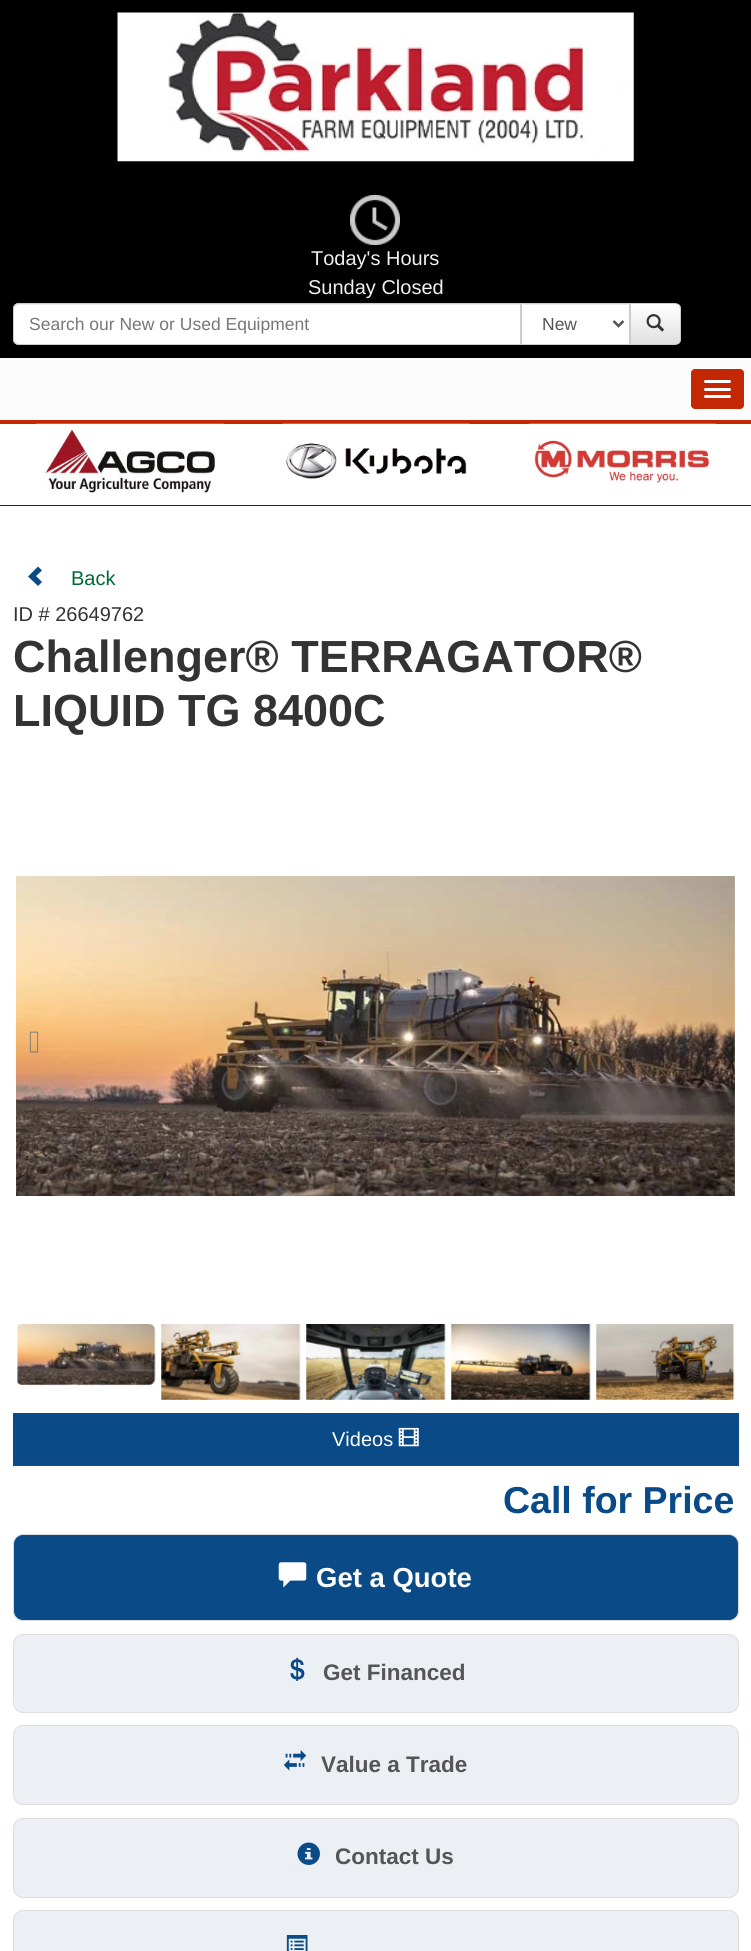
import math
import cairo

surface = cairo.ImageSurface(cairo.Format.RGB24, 751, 1951)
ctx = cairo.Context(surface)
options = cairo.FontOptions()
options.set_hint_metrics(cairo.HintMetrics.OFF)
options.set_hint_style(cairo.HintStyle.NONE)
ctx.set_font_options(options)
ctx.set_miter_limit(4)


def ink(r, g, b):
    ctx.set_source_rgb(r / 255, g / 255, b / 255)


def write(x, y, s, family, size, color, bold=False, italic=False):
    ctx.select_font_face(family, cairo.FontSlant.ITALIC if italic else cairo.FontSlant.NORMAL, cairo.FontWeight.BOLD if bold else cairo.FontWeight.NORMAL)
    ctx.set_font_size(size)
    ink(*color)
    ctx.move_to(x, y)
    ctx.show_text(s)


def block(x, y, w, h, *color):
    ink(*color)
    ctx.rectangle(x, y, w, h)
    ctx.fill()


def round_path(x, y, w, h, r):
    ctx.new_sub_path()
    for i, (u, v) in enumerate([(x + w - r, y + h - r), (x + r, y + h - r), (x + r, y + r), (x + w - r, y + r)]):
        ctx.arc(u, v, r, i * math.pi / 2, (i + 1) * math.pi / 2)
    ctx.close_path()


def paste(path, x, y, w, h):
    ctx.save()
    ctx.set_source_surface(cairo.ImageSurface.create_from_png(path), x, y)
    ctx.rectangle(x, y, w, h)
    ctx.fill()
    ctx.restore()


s1 = dict(family="Liberation Sans", size=20, color=(241, 241, 241))
s2 = dict(family="Liberation Sans", size=17.5, color=(119, 119, 119))
s3 = dict(family="Liberation Sans", size=17.5, color=(85, 85, 85))
s4 = dict(family="Liberation Sans", size=20, color=(0, 106, 54))
s5 = dict(family="Liberation Sans", size=20, color=(51, 51, 51))
s6 = dict(family="Liberation Sans", size=45, color=(51, 51, 51), bold=True)
s7 = dict(family="Liberation Sans", size=20, color=(255, 255, 255))
s8 = dict(family="Liberation Sans", size=37.5, color=(10, 74, 135), bold=True)
s9 = dict(family="Liberation Sans", size=27.5, color=(255, 255, 255), bold=True)
s10 = dict(family="Liberation Sans", size=22.5, color=(85, 85, 85), bold=True)

ink(255, 255, 255)
ctx.paint()
block(0, 0, 751, 358, 0, 0, 0)
paste("pic1.png", 117, 12, 517, 150)
paste("pic2.png", 350, 195, 50, 50)
write(311, 265, "Today's Hours", **s1)
write(308, 294, "Sunday Closed", **s1)
ink(255, 255, 255)
ctx.new_path()
ctx.move_to(19, 303)
ctx.line_to(521, 303)
ctx.line_to(521, 345)
ctx.line_to(19, 345)
ctx.curve_to(15.5, 345, 13, 342.5, 13, 339)
ctx.line_to(13, 309)
ctx.curve_to(13, 305.5, 15.5, 303, 19, 303)
ctx.close_path()
ctx.fill()
ink(236, 236, 236)
ctx.new_path()
ctx.move_to(19, 305)
ctx.line_to(520, 305)
ctx.line_to(520, 304)
ctx.line_to(19, 304)
ctx.curve_to(16, 304, 14, 306, 14, 309)
ctx.line_to(14, 310)
ctx.curve_to(14, 307, 16, 305, 19, 305)
ctx.close_path()
ctx.fill()
ctx.new_path()
ctx.move_to(19, 303.5)
ctx.line_to(520.5, 303.5)
ctx.line_to(520.5, 344.5)
ctx.line_to(19, 344.5)
ctx.curve_to(16, 344.5, 13.5, 342, 13.5, 339)
ctx.line_to(13.5, 309)
ctx.curve_to(13.5, 306, 16, 303.5, 19, 303.5)
ctx.close_path()
ink(204, 204, 204)
ctx.set_line_width(1)
ctx.stroke()
write(29, 330, "Search our New or Used Equipment", **s2)
block(522, 304, 107, 40, 255, 255, 255)
block(523, 304, 106, 1, 236, 236, 236)
ctx.rectangle(521.5, 303.5, 108, 41)
ink(204, 204, 204)
ctx.stroke()
ctx.new_path()
ctx.move_to(613.5, 321)
ctx.line_to(618.5, 326)
ctx.line_to(623.5, 321)
ink(85, 85, 85)
ctx.set_line_width(2.5)
ctx.stroke()
write(542, 330, "New", **s3)
ctx.save()
ctx.new_path()
ctx.move_to(630, 303)
ctx.line_to(675, 303)
ctx.curve_to(678.5, 303, 681, 305.5, 681, 309)
ctx.line_to(681, 339)
ctx.curve_to(681, 342.5, 678.5, 345, 675, 345)
ctx.line_to(630, 345)
ctx.close_path()
ctx.clip()
gradient = cairo.LinearGradient(656, 304, 656, 344)
gradient.add_color_stop_rgba(0, 1, 1, 1, 1)
gradient.add_color_stop_rgba(1, 0.878, 0.878, 0.878, 1)
ctx.set_source(gradient)
ctx.rectangle(631, 304, 50, 40)
ctx.fill()
ctx.restore()
ctx.new_path()
ctx.move_to(630.5, 303.5)
ctx.line_to(675, 303.5)
ctx.curve_to(678, 303.5, 680.5, 306, 680.5, 309)
ctx.line_to(680.5, 339)
ctx.curve_to(680.5, 342, 678, 344.5, 675, 344.5)
ctx.line_to(630.5, 344.5)
ctx.close_path()
ink(204, 204, 204)
ctx.set_line_width(1)
ctx.stroke()
paste("pic3.png", 646, 314, 18, 18)
block(0, 358, 751, 62, 252, 252, 252)
block(0, 420, 751, 4, 196, 39, 3)
round_path(690.5, 368.5, 54, 41, 4.5)
ctx.fill_preserve()
ink(255, 255, 255)
ctx.stroke()
round_path(704, 380, 27, 3, 1.5)
ctx.fill()
round_path(704, 388, 27, 3, 1.5)
ctx.fill()
round_path(704, 395, 27, 3, 1.5)
ctx.fill()
block(0, 505, 751, 1, 37, 37, 37)
paste("pic4.png", 36, 423, 188, 70)
paste("pic5.png", 282, 423, 188, 56)
paste("pic6.png", 528, 423, 189, 61)
ink(10, 74, 135)
ctx.new_path()
ctx.move_to(28, 576.5)
ctx.line_to(38, 586)
ctx.line_to(42, 582)
ctx.line_to(36, 576)
ctx.line_to(42, 570.5)
ctx.line_to(38, 566.5)
ctx.close_path()
ctx.fill()
write(71, 585, "Back", **s4)
write(13, 621, "ID # 26649762", **s5)
write(13, 672, "Challenger® TERRAGATOR®", **s6)
write(13, 726, "LIQUID TG 8400C", **s6)
paste("pic7.png", 16, 876, 719, 320)
paste("pic8.png", 29, 1031, 10, 22)
paste("pic9.png", 683, 1031, 9, 22)
paste("pic10.png", 17, 1324, 139, 62)
paste("pic11.png", 161, 1324, 140, 76)
paste("pic12.png", 306, 1324, 140, 76)
paste("pic13.png", 451, 1324, 140, 76)
paste("pic14.png", 596, 1324, 139, 76)
block(13, 1413, 726, 53, 10, 74, 135)
write(332, 1446, "Videos", **s7)
paste("pic15.png", 398, 1427, 21, 20)
write(503, 1513, "Call for Price", **s8)
round_path(13.5, 1534.5, 725, 86, 9.5)
ctx.fill_preserve()
ink(222, 222, 222)
ctx.stroke()
paste("pic16.png", 278, 1562, 29, 26)
write(316, 1587, "Get a Quote", **s9)
ink(236, 239, 243)
round_path(13.5, 1634.5, 725, 78, 9.5)
ctx.fill_preserve()
ink(222, 222, 222)
ctx.stroke()
paste("pic17.png", 290, 1657, 15, 24)
write(323, 1680, "Get Financed", **s10)
ink(236, 239, 243)
round_path(13.5, 1725.5, 725, 79, 9.5)
ctx.fill_preserve()
ink(222, 222, 222)
ctx.stroke()
paste("pic18.png", 283, 1750, 24, 21)
write(321, 1772, "Value a Trade", **s10)
ink(236, 239, 243)
round_path(13.5, 1818.5, 725, 79, 9.5)
ctx.fill_preserve()
ink(222, 222, 222)
ctx.stroke()
paste("pic19.png", 297, 1842, 23, 23)
write(335, 1864, "Contact Us", **s10)
ink(236, 239, 243)
round_path(13.5, 1910.5, 725, 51, 9.5)
ctx.fill_preserve()
ink(222, 222, 222)
ctx.stroke()
paste("pic20.png", 286, 1935, 22, 16)
surface.write_to_png("screenshot.png")
